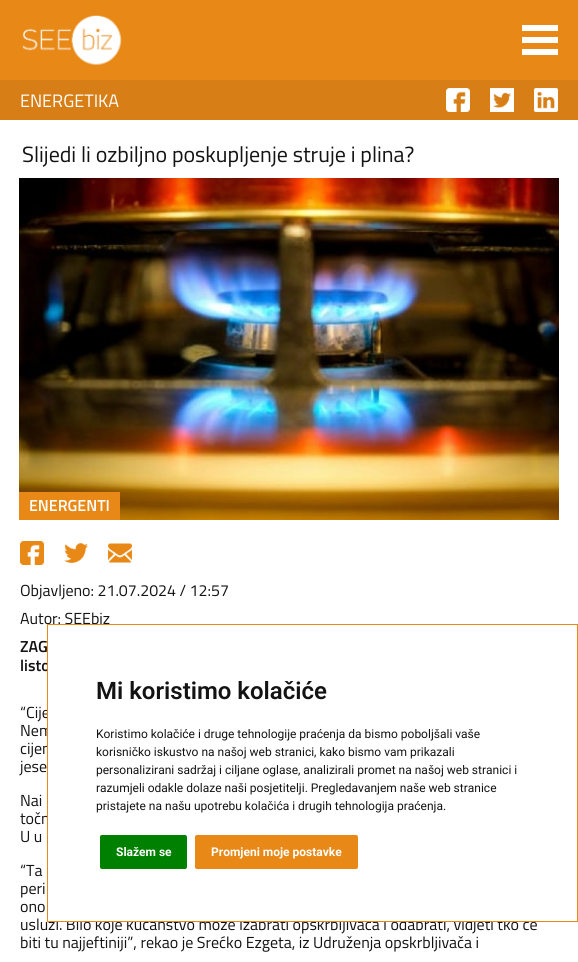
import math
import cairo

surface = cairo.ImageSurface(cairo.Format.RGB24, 578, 962)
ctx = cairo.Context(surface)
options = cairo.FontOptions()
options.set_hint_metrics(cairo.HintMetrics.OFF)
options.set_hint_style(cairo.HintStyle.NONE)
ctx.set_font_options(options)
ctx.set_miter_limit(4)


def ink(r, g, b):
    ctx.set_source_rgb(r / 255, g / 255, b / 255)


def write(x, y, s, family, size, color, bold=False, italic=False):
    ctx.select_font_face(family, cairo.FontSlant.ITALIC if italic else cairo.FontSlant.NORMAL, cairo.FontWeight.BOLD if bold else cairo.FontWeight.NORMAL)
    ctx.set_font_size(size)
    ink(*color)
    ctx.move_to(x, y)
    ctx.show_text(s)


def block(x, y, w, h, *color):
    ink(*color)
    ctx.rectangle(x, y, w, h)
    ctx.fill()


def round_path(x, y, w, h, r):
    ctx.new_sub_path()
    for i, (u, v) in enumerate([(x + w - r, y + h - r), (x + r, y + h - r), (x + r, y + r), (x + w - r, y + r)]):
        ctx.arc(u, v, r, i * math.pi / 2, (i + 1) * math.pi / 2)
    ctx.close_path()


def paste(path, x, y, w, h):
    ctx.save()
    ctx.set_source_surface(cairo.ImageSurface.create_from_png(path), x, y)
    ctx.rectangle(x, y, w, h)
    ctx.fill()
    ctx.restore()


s1 = dict(family="Titillium Web", size=18, color=(255, 255, 255))
s2 = dict(family="Titillium Web", size=22, color=(19, 19, 19))
s3 = dict(family="Titillium Web SemiBold", size=16, color=(255, 255, 255))
s4 = dict(family="Titillium Web", size=16, color=(19, 19, 19))
s5 = dict(family="Titillium Web SemiBold", size=16, color=(19, 19, 19))
s6 = dict(family="Roboto SemiBold", size=24, color=(19, 19, 19))
s7 = dict(family="Roboto", size=12, color=(19, 19, 19))
s8 = dict(family="Roboto", size=12, color=(255, 255, 255), bold=True)

ink(255, 255, 255)
ctx.paint()
block(0, 0, 578, 80, 232, 136, 23)
paste("pic1.png", 22, 15, 100, 50)
block(522, 25, 36, 6, 255, 255, 255)
block(522, 37, 36, 6, 255, 255, 255)
block(522, 49, 36, 6, 255, 255, 255)
block(0, 80, 578, 40, 215, 127, 22)
write(20, 107, "ENERGETIKA", **s1)
paste("pic2.png", 446, 88, 24, 24)
paste("pic3.png", 490, 88, 24, 24)
paste("pic4.png", 534, 88, 24, 24)
write(22, 162, "Slijedi li ozbiljno poskupljenje struje i plina?", **s2)
paste("pic5.png", 19, 178, 540, 342)
block(19, 492, 101, 28, 232, 136, 23)
write(29, 511, "ENERGENTI", **s3)
paste("pic6.png", 20, 541, 24, 24)
paste("pic7.png", 64, 543, 24, 20)
paste("pic8.png", 108, 543, 24, 20)
write(20, 596, "Objavljeno: 21.07.2024 / 12:57", **s4)
write(20, 624, "Autor: SEEbiz", **s4)
write(20, 652, "ZAG", **s5)
write(20, 671, "listo", **s5)
write(20, 718, "“Cije", **s4)
write(20, 736, "Nem", **s4)
write(20, 754, "cijen", **s4)
write(20, 772, "jese", **s4)
write(20, 806, "Nai", **s4)
write(20, 824, "točn", **s4)
write(20, 842, "U u", **s4)
write(20, 876, "“Ta", **s4)
write(20, 894, "peri", **s4)
write(20, 912, "ono", **s4)
write(20, 930, "usluzi. Bilo koje kućanstvo može izabrati opskrbljivača i odabrati, vidjeti tko će", **s4)
write(20, 948, "biti tu najjeftiniji”, rekao je Srećko Ezgeta, iz Udruženja opskrbljivača i", **s4)
block(48, 663, 481, 258, 255, 255, 255)
ctx.rectangle(47.5, 624.5, 530, 297)
ink(232, 136, 23)
ctx.set_line_width(1)
ctx.stroke()
write(96, 699, "Mi koristimo kolačiće", **s6)
write(96, 738, "Koristimo kolačiće i druge tehnologije praćenja da bismo poboljšali vaše", **s7)
write(96, 756, "korisničko iskustvo na našoj web stranici, kako bismo vam prikazali", **s7)
write(96, 774, "personalizirani sadržaj i ciljane oglase, analizirali promet na našoj web stranici i", **s7)
write(96, 792, "razumjeli odakle dolaze naši posjetitelji. Pregledavanjem naše web stranice", **s7)
write(96, 810, "pristajete na našu upotrebu kolačića i drugih tehnologija praćenja.", **s7)
ink(0, 128, 0)
round_path(100, 835, 87, 34, 2)
ctx.fill()
write(116, 856, "Slažem se", **s8)
ink(232, 136, 23)
round_path(195, 835, 163, 34, 2)
ctx.fill()
write(211, 856, "Promjeni moje postavke", **s8)
surface.write_to_png("screenshot.png")
